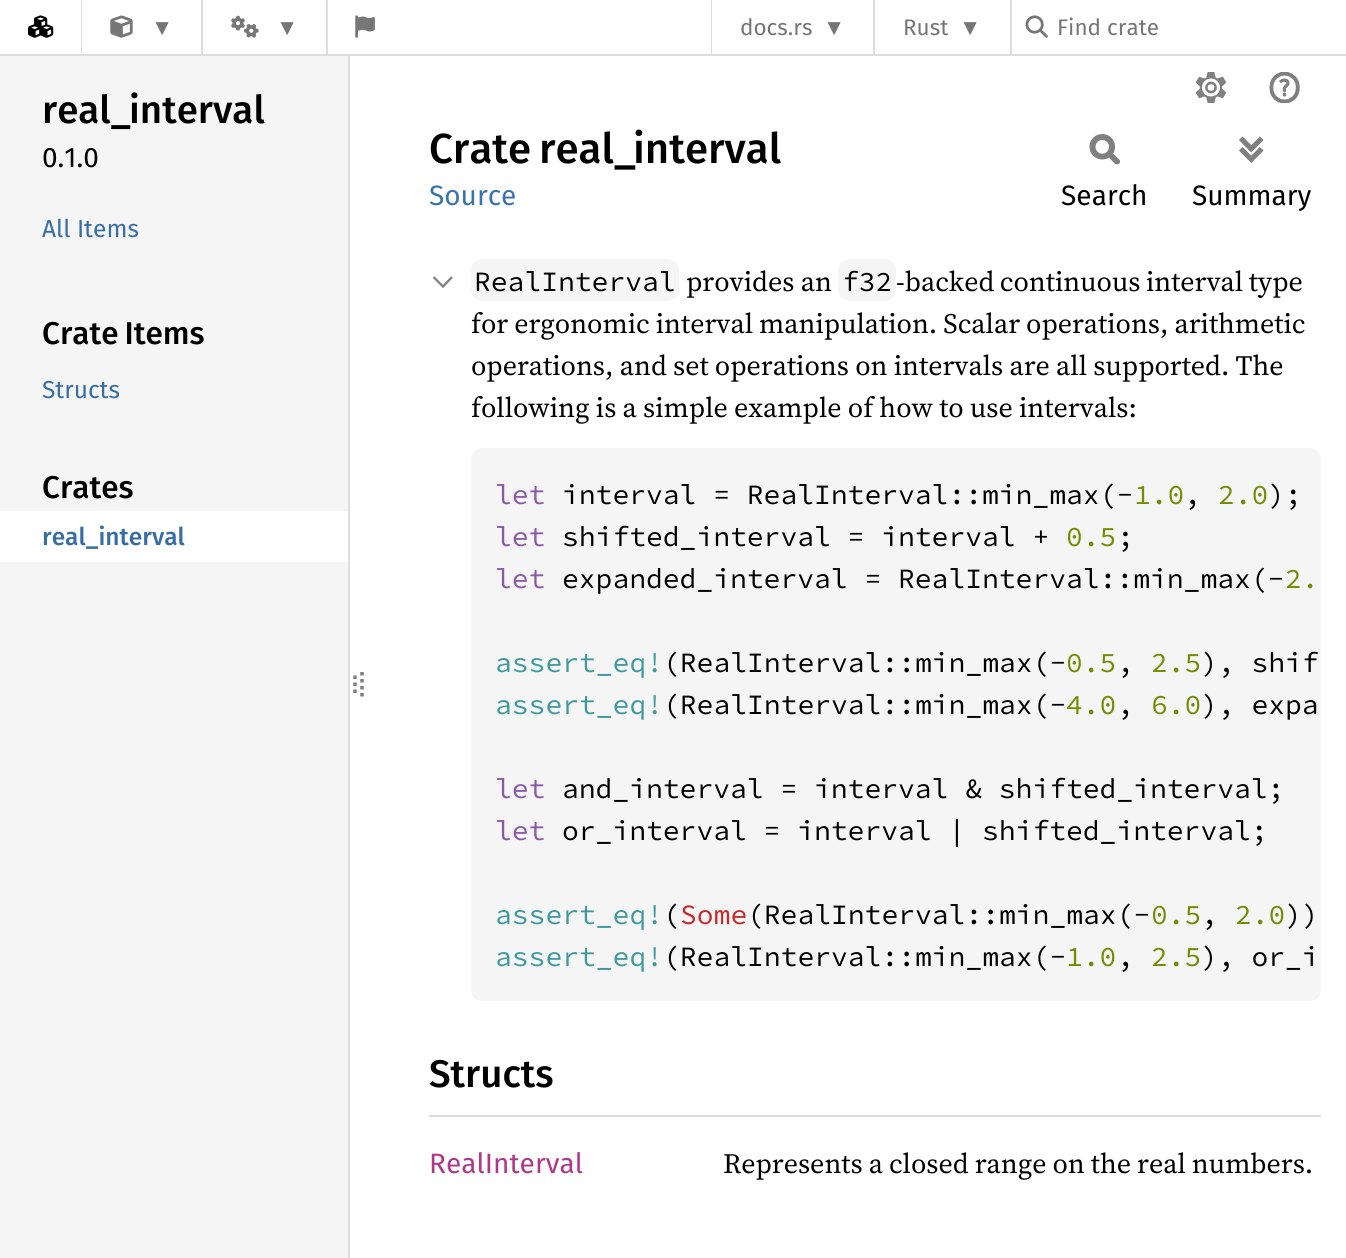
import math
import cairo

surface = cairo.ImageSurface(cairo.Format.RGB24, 1346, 1258)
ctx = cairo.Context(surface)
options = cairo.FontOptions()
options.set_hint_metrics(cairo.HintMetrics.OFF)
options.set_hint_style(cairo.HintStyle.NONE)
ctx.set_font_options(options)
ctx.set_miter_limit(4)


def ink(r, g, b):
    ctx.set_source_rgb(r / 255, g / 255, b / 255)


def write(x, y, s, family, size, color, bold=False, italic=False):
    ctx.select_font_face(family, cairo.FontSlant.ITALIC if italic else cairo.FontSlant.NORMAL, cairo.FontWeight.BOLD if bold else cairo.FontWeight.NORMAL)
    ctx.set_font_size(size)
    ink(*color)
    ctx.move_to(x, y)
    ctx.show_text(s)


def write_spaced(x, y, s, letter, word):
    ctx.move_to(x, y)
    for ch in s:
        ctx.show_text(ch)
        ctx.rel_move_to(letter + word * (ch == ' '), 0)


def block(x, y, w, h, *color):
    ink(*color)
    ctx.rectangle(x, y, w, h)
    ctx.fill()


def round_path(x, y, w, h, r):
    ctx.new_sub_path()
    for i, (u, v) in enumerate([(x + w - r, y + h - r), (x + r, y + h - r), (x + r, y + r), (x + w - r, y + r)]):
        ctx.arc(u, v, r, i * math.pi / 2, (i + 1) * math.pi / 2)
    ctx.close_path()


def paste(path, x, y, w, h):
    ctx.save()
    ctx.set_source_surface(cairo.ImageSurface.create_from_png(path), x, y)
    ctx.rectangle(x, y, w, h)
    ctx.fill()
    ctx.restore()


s1 = dict(family="Liberation Sans", size=22.5, color=(117, 117, 117))
s2 = dict(family="Fira Sans", size=22.5, color=(117, 117, 117))
s3 = dict(family="Fira Sans Medium", size=38.5, color=(0, 0, 0))
s4 = dict(family="Fira Sans", size=28, color=(0, 0, 0))
s5 = dict(family="Fira Sans", size=24.5, color=(53, 109, 164))
s6 = dict(family="Fira Sans Medium", size=31.5, color=(0, 0, 0))
s7 = dict(family="Fira Sans Medium", size=24.5, color=(53, 109, 164))
s8 = dict(family="Fira Sans Medium", size=42, color=(0, 0, 0))
s9 = dict(family="Fira Sans", size=28, color=(56, 115, 173))
s10 = dict(family="Source Code Pro", size=28, color=(0, 0, 0))
s11 = dict(family="Source Serif 4", size=28, color=(0, 0, 0))
s12 = dict(family="Source Code Pro", size=28, color=(137, 89, 168))
s13 = dict(family="Source Code Pro", size=28, color=(113, 140, 0))
s14 = dict(family="Source Code Pro", size=28, color=(62, 153, 159))
s15 = dict(family="Source Code Pro", size=28, color=(200, 40, 41))
s16 = dict(family="Fira Sans", size=28, color=(173, 55, 138))

ink(255, 255, 255)
ctx.paint()
block(0, 54, 1346, 2, 221, 221, 221)
paste("pic1.png", 28, 15, 26, 23)
block(81, 0, 1, 54, 221, 221, 221)
paste("pic2.png", 110, 15, 23, 23)
write(151, 35, "▼", **s1)
block(201, 0, 2, 54, 221, 221, 221)
paste("pic3.png", 231, 15, 28, 23)
write(276, 35, "▼", **s1)
block(326, 0, 2, 54, 221, 221, 221)
paste("pic4.png", 355, 15, 20, 23)
block(711, 0, 1, 54, 221, 221, 221)
write(740, 35, "docs.rs", **s2)
write(823, 35, "▼", **s1)
block(873, 0, 2, 54, 221, 221, 221)
write(903, 35, "Rust", **s2)
write(959, 35, "▼", **s1)
block(1010, 0, 2, 54, 221, 221, 221)
paste("pic5.png", 1025, 15, 23, 23)
write(1057, 35, "Find crate", **s2)
block(0, 56, 348, 1202, 245, 245, 245)
block(348, 56, 2, 1202, 221, 221, 221)
write(42, 123, "real_", **s3)
write(129, 123, "interval", **s3)
write(42, 167, "0.1.0", **s4)
write(42, 237, "All Items", **s5)
ctx.select_font_face("Fira Sans Medium")
ctx.set_font_size(31.5)
ink(0, 0, 0)
write_spaced(42, 344, "Crate Items", 0, -2)
write(42, 398, "Structs", **s5)
write(42, 498, "Crates", **s6)
block(0, 511, 348, 51, 255, 255, 255)
write(42, 545, "real_interval", **s7)
ctx.new_path()
ctx.move_to(355, 675.5)
ctx.line_to(355, 679)
ctx.move_to(355, 682.5)
ctx.line_to(355, 686)
ctx.move_to(355, 689.5)
ctx.line_to(355, 693)
ink(128, 128, 128)
ctx.set_line_width(3.5)
ctx.stroke()
ctx.new_path()
ctx.move_to(362, 672)
ctx.line_to(362, 700)
ctx.set_dash([3.5, 3.5])
ctx.stroke()
write(429, 163, "Crate", **s8)
write(539, 163, "real_", **s8)
write(633, 163, "interval", **s8)
write(429, 205, "Source", **s9)
paste("pic6.png", 1195, 72, 32, 31)
paste("pic7.png", 1269, 72, 31, 31)
paste("pic8.png", 1089, 134, 31, 31)
write(1061, 205, "Search", **s4)
paste("pic9.png", 1239, 136, 25, 27)
write(1192, 205, "Summary", **s4)
ctx.new_path()
ctx.move_to(433.5, 277)
ctx.line_to(443, 286.5)
ctx.line_to(452, 277)
ink(128, 128, 128)
ctx.set_line_width(2.3)
ctx.set_dash([])
ctx.stroke()
ink(245, 245, 245)
round_path(471, 259, 208, 42, 11)
ctx.fill()
write(474, 291, "RealInterval", **s10)
write(686, 291, "provides an", **s11)
ink(245, 245, 245)
round_path(838, 259, 58, 42, 11)
ctx.fill()
write(842, 291, "f32", **s10)
ctx.select_font_face("Source Serif 4")
write_spaced(896, 291, "-backed continuous interval type", 0, -1)
write_spaced(471, 333, "for ergonomic interval manipulation. Scalar operations, arithmetic", 0, -0.5)
write_spaced(471, 375, "operations, and set operations on intervals are all supported. The", 0, -0.25)
write_spaced(471, 417, "following is a simple example of how to use intervals:", 0, -0.25)
ink(245, 245, 245)
round_path(471, 448, 850, 553, 11)
ctx.fill()
write(495, 504, "let", **s12)
write(562, 504, "interval = RealInterval::min_max(-", **s10)
write(1134, 504, "1.0", **s13)
write(1184, 504, ",", **s10)
write(1218, 504, "2.0", **s13)
write(1268, 504, ");", **s10)
write(495, 546, "let", **s12)
write(562, 546, "shifted_interval = interval +", **s10)
write(1066, 546, "0.5", **s13)
write(1117, 546, ";", **s10)
write(495, 588, "let", **s12)
write(562, 588, "expanded_interval = RealInterval::min_max(-", **s10)
write(1285, 588, "2.", **s13)
write(495, 672, "assert_eq!", **s14)
write(663, 672, "(RealInterval::min_max(-", **s10)
write(1066, 672, "0.5", **s13)
write(1117, 672, ",", **s10)
write(1151, 672, "2.5", **s13)
write(1201, 672, "), shif", **s10)
write(495, 714, "assert_eq!", **s14)
write(663, 714, "(RealInterval::min_max(-", **s10)
write(1066, 714, "4.0", **s13)
write(1117, 714, ",", **s10)
write(1151, 714, "6.0", **s13)
write(1201, 714, "), expa", **s10)
write(495, 798, "let", **s12)
write(562, 798, "and_interval = interval & shifted_interval;", **s10)
write(495, 840, "let", **s12)
write(562, 840, "or_interval = interval | shifted_interval;", **s10)
write(495, 924, "assert_eq!", **s14)
write(663, 924, "(", **s10)
write(680, 924, "Some", **s15)
write(747, 924, "(RealInterval::min_max(-", **s10)
write(1151, 924, "0.5", **s13)
write(1201, 924, ",", **s10)
write(1235, 924, "2.0", **s13)
write(1285, 924, "))", **s10)
write(495, 966, "assert_eq!", **s14)
write(663, 966, "(RealInterval::min_max(-", **s10)
write(1066, 966, "1.0", **s13)
write(1117, 966, ",", **s10)
write(1151, 966, "2.5", **s13)
write(1201, 966, "), or_i", **s10)
block(429, 1115, 892, 2, 221, 221, 221)
write(429, 1087, "Structs", **s3)
write(429, 1173, "RealInterval", **s16)
ctx.select_font_face("Source Serif 4")
ink(0, 0, 0)
write_spaced(723, 1173, "Represents a closed range on the real numbers.", 0, -0.5)
surface.write_to_png("screenshot.png")
